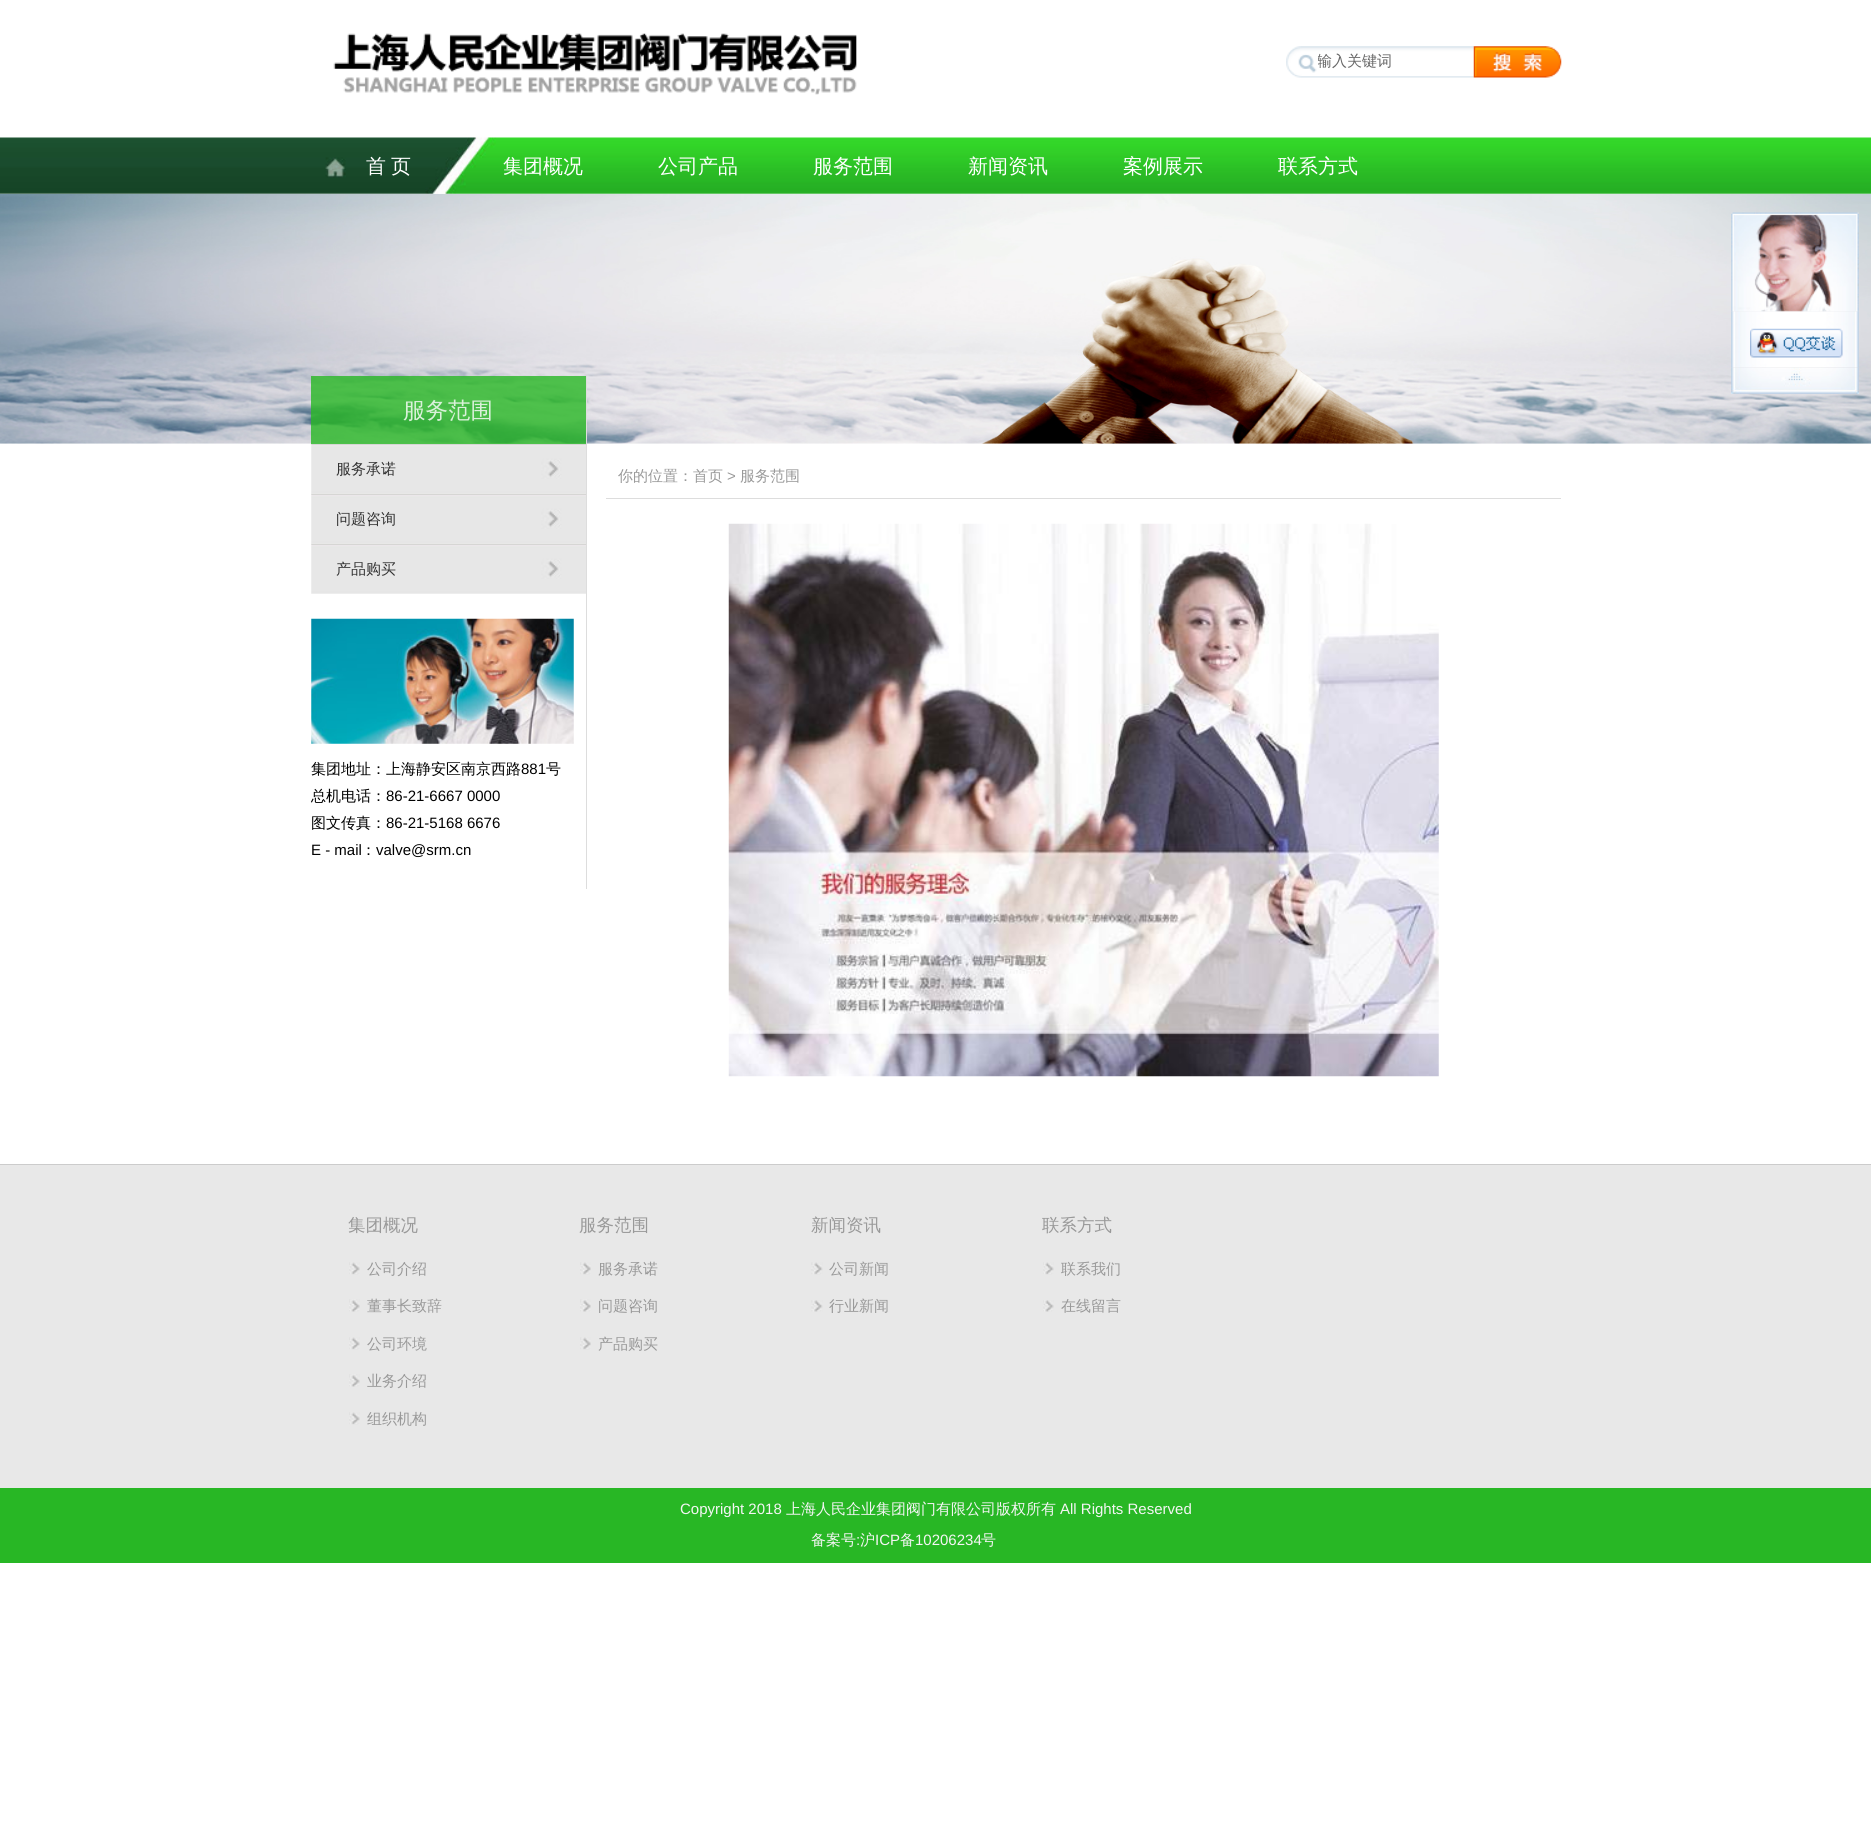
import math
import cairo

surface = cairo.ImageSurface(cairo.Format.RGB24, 1871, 1846)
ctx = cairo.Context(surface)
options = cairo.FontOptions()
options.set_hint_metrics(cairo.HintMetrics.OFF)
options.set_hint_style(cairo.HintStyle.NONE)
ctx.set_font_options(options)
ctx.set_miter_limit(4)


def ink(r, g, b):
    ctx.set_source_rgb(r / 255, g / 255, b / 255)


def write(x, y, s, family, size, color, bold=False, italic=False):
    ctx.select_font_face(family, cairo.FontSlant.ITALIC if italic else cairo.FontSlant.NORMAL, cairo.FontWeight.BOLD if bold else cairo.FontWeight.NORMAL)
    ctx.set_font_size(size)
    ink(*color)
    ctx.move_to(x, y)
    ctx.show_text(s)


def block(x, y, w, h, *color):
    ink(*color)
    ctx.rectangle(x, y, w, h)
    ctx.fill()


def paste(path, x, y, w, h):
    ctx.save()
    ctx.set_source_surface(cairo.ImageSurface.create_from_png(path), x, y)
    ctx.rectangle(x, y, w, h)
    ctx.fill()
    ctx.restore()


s1 = dict(family="WenQuanYi Zen Hei Medium", size=15, color=(102, 102, 102))
s2 = dict(family="WenQuanYi Zen Hei Medium", size=20, color=(255, 255, 255))
s3 = dict(family="WenQuanYi Zen Hei Medium", size=22.5, color=(218, 241, 218))
s4 = dict(family="WenQuanYi Zen Hei Medium", size=15, color=(51, 51, 51))
s5 = dict(family="WenQuanYi Zen Hei Medium", size=15, color=(0, 0, 0))
s6 = dict(family="Liberation Sans", size=15, color=(0, 0, 0))
s7 = dict(family="WenQuanYi Zen Hei Medium", size=15, color=(153, 153, 153))
s8 = dict(family="Liberation Sans", size=15, color=(153, 153, 153))
s9 = dict(family="WenQuanYi Zen Hei Medium", size=17.5, color=(153, 153, 153))
s10 = dict(family="Liberation Sans", size=15, color=(245, 245, 245))
s11 = dict(family="WenQuanYi Zen Hei Medium", size=15, color=(245, 245, 245))

ink(255, 255, 255)
ctx.paint()
paste("pic1.png", 333, 33, 524, 62)
paste("pic2.png", 1286, 46, 276, 32)
ctx.save()
ctx.rectangle(1318, 48, 150, 28)
ctx.clip()
write(1317, 66, "输入关键词", **s1)
ctx.restore()
paste("pic3.png", 0, 137, 1871, 57)
write(366, 173, "首", **s2)
write(391, 173, "页", **s2)
write(503, 173, "集团概况", **s2)
write(658, 173, "公司产品", **s2)
write(813, 173, "服务范围", **s2)
write(968, 173, "新闻资讯", **s2)
write(1123, 173, "案例展示", **s2)
write(1278, 173, "联系方式", **s2)
paste("pic4.png", 0, 193, 1871, 251)
block(586, 376, 1, 513, 221, 221, 221)
paste("pic5.png", 311, 443, 275, 51)
ctx.set_source_rgba(0.157, 0.718, 0.145, 0.8)
ctx.rectangle(311, 376, 275, 68)
ctx.fill()
write(403, 418, "服务范围", **s3)
write(336, 474, "服务承诺", **s4)
paste("pic6.png", 311, 493, 275, 51)
write(336, 524, "问题咨询", **s4)
paste("pic6.png", 311, 543, 275, 51)
write(336, 574, "产品购买", **s4)
paste("pic7.png", 311, 618, 263, 126)
write(311, 774, "集团地址：上海静安区南京西路", **s5)
write(521, 774, "881", **s6)
write(546, 774, "号", **s5)
write(311, 801, "总机电话：", **s5)
write(386, 801, "86-21-6667 0000", **s6)
write(311, 828, "图文传真：", **s5)
write(386, 828, "86-21-5168 6676", **s6)
write(311, 855, "E - mail", **s6)
write(361, 855, "：", **s5)
write(376, 855, "valve@srm.cn", **s6)
block(606, 498, 955, 1, 221, 221, 221)
write(618, 481, "你的位置：首页", **s7)
write(727, 481, ">", **s8)
write(740, 481, "服务范围", **s7)
paste("pic8.png", 728, 523, 711, 554)
paste("pic10.png", 1731, 311, 128, 57)
paste("pic9.png", 1731, 212, 128, 100)
paste("pic11.png", 1750, 328, 93, 30)
paste("pic12.png", 1731, 367, 128, 27)
block(0, 1165, 1871, 323, 232, 232, 232)
block(0, 1164, 1871, 1, 204, 204, 204)
write(348, 1231, "集团概况", **s9)
paste("pic13.png", 349, 1262, 11, 13)
write(367, 1274, "公司介绍", **s7)
paste("pic14.png", 349, 1299, 11, 13)
write(367, 1311, "董事长致辞", **s7)
paste("pic13.png", 349, 1337, 11, 13)
write(367, 1349, "公司环境", **s7)
paste("pic14.png", 349, 1374, 11, 13)
write(367, 1386, "业务介绍", **s7)
paste("pic13.png", 349, 1412, 11, 13)
write(367, 1424, "组织机构", **s7)
write(579, 1231, "服务范围", **s9)
paste("pic15.png", 580, 1262, 11, 13)
write(598, 1274, "服务承诺", **s7)
paste("pic16.png", 580, 1299, 11, 13)
write(598, 1311, "问题咨询", **s7)
paste("pic15.png", 580, 1337, 11, 13)
write(598, 1349, "产品购买", **s7)
write(811, 1231, "新闻资讯", **s9)
paste("pic17.png", 811, 1262, 12, 13)
write(829, 1274, "公司新闻", **s7)
paste("pic18.png", 811, 1300, 12, 12)
write(829, 1311, "行业新闻", **s7)
write(1042, 1231, "联系方式", **s9)
paste("pic19.png", 1043, 1262, 11, 13)
write(1061, 1274, "联系我们", **s7)
paste("pic20.png", 1043, 1300, 11, 12)
write(1061, 1311, "在线留言", **s7)
block(0, 1488, 1871, 75, 40, 183, 37)
write(680, 1514, "Copyright 2018", **s10)
write(786, 1514, "上海人民企业集团阀门有限公司版权所有", **s11)
write(1060, 1514, "All Rights Reserved", **s10)
write(811, 1545, "备案号", **s11)
write(856, 1545, ":", **s10)
write(860, 1545, "沪", **s11)
write(875, 1545, "ICP", **s10)
write(900, 1545, "备", **s11)
write(915, 1545, "10206234", **s10)
write(981, 1545, "号", **s11)
surface.write_to_png("screenshot.png")
